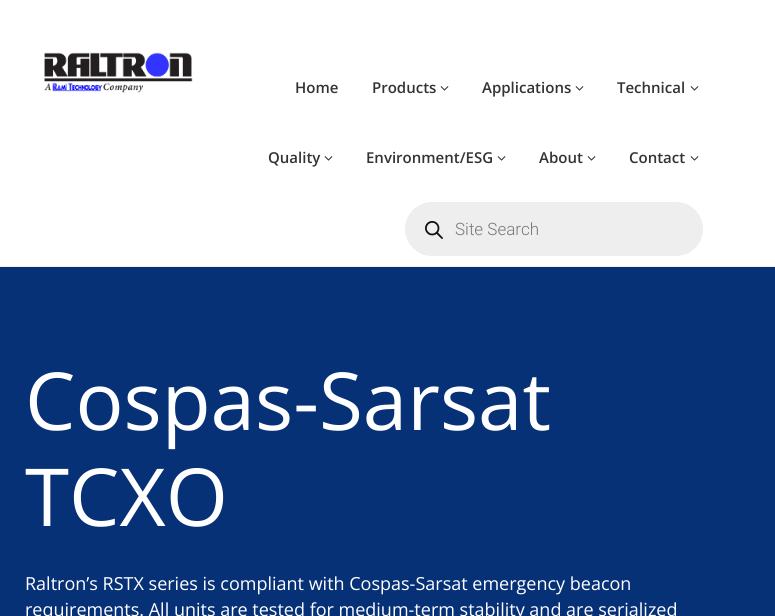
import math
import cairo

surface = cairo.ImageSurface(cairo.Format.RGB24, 775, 616)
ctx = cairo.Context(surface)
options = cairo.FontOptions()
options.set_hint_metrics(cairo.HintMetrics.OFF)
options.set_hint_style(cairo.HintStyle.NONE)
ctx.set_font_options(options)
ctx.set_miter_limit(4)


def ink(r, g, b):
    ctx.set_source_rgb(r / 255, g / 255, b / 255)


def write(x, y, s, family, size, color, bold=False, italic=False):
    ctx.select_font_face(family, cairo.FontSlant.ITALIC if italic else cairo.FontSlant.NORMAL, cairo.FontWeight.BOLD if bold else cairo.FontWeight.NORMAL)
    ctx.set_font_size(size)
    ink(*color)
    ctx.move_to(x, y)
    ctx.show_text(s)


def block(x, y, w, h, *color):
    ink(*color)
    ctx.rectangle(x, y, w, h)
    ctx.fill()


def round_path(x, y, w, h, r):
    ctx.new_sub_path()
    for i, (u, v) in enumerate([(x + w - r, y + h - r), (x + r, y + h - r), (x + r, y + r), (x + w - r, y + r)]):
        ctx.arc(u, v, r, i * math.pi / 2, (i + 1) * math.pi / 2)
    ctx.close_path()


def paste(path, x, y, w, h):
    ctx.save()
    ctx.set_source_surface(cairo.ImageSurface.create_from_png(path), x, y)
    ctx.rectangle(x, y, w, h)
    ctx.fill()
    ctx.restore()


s1 = dict(family="Open Sans SemiBold", size=15, color=(51, 51, 51))
s2 = dict(family="Roboto Light", size=17, color=(119, 119, 119))
s3 = dict(family="Open Sans", size=80, color=(255, 255, 255))
s4 = dict(family="Open Sans", size=18, color=(255, 255, 255))

ink(255, 255, 255)
ctx.paint()
block(0, 266, 775, 1, 240, 240, 240)
paste("pic1.png", 44, 52, 149, 41)
write(295, 93, "Home", **s1)
write(372, 93, "Products", **s1)
paste("pic2.png", 440, 86, 9, 5)
write(482, 93, "Applications", **s1)
paste("pic2.png", 575, 86, 9, 5)
write(617, 93, "Technical", **s1)
paste("pic2.png", 690, 86, 9, 5)
write(268, 163, "Quality", **s1)
paste("pic2.png", 324, 156, 9, 5)
write(366, 163, "Environment/ESG", **s1)
paste("pic2.png", 497, 156, 9, 5)
write(539, 163, "About", **s1)
paste("pic2.png", 587, 156, 9, 5)
write(629, 163, "Contact", **s1)
paste("pic2.png", 690, 156, 9, 5)
ink(238, 238, 238)
round_path(405, 202, 298, 54, 27)
ctx.fill()
paste("pic3.png", 425, 221, 18, 18)
write(455, 235, "Site Search", **s2)
block(0, 267, 775, 349, 7, 49, 119)
write(25, 430, "Cospas-Sarsat", **s3)
write(25, 526, "TCXO", **s3)
write(25, 590, "Raltron’s RSTX series is compliant with Cospas-Sarsat emergency beacon", **s4)
write(25, 616, "requirements. All units are tested for medium-term stability and are serialized", **s4)
surface.write_to_png("screenshot.png")
